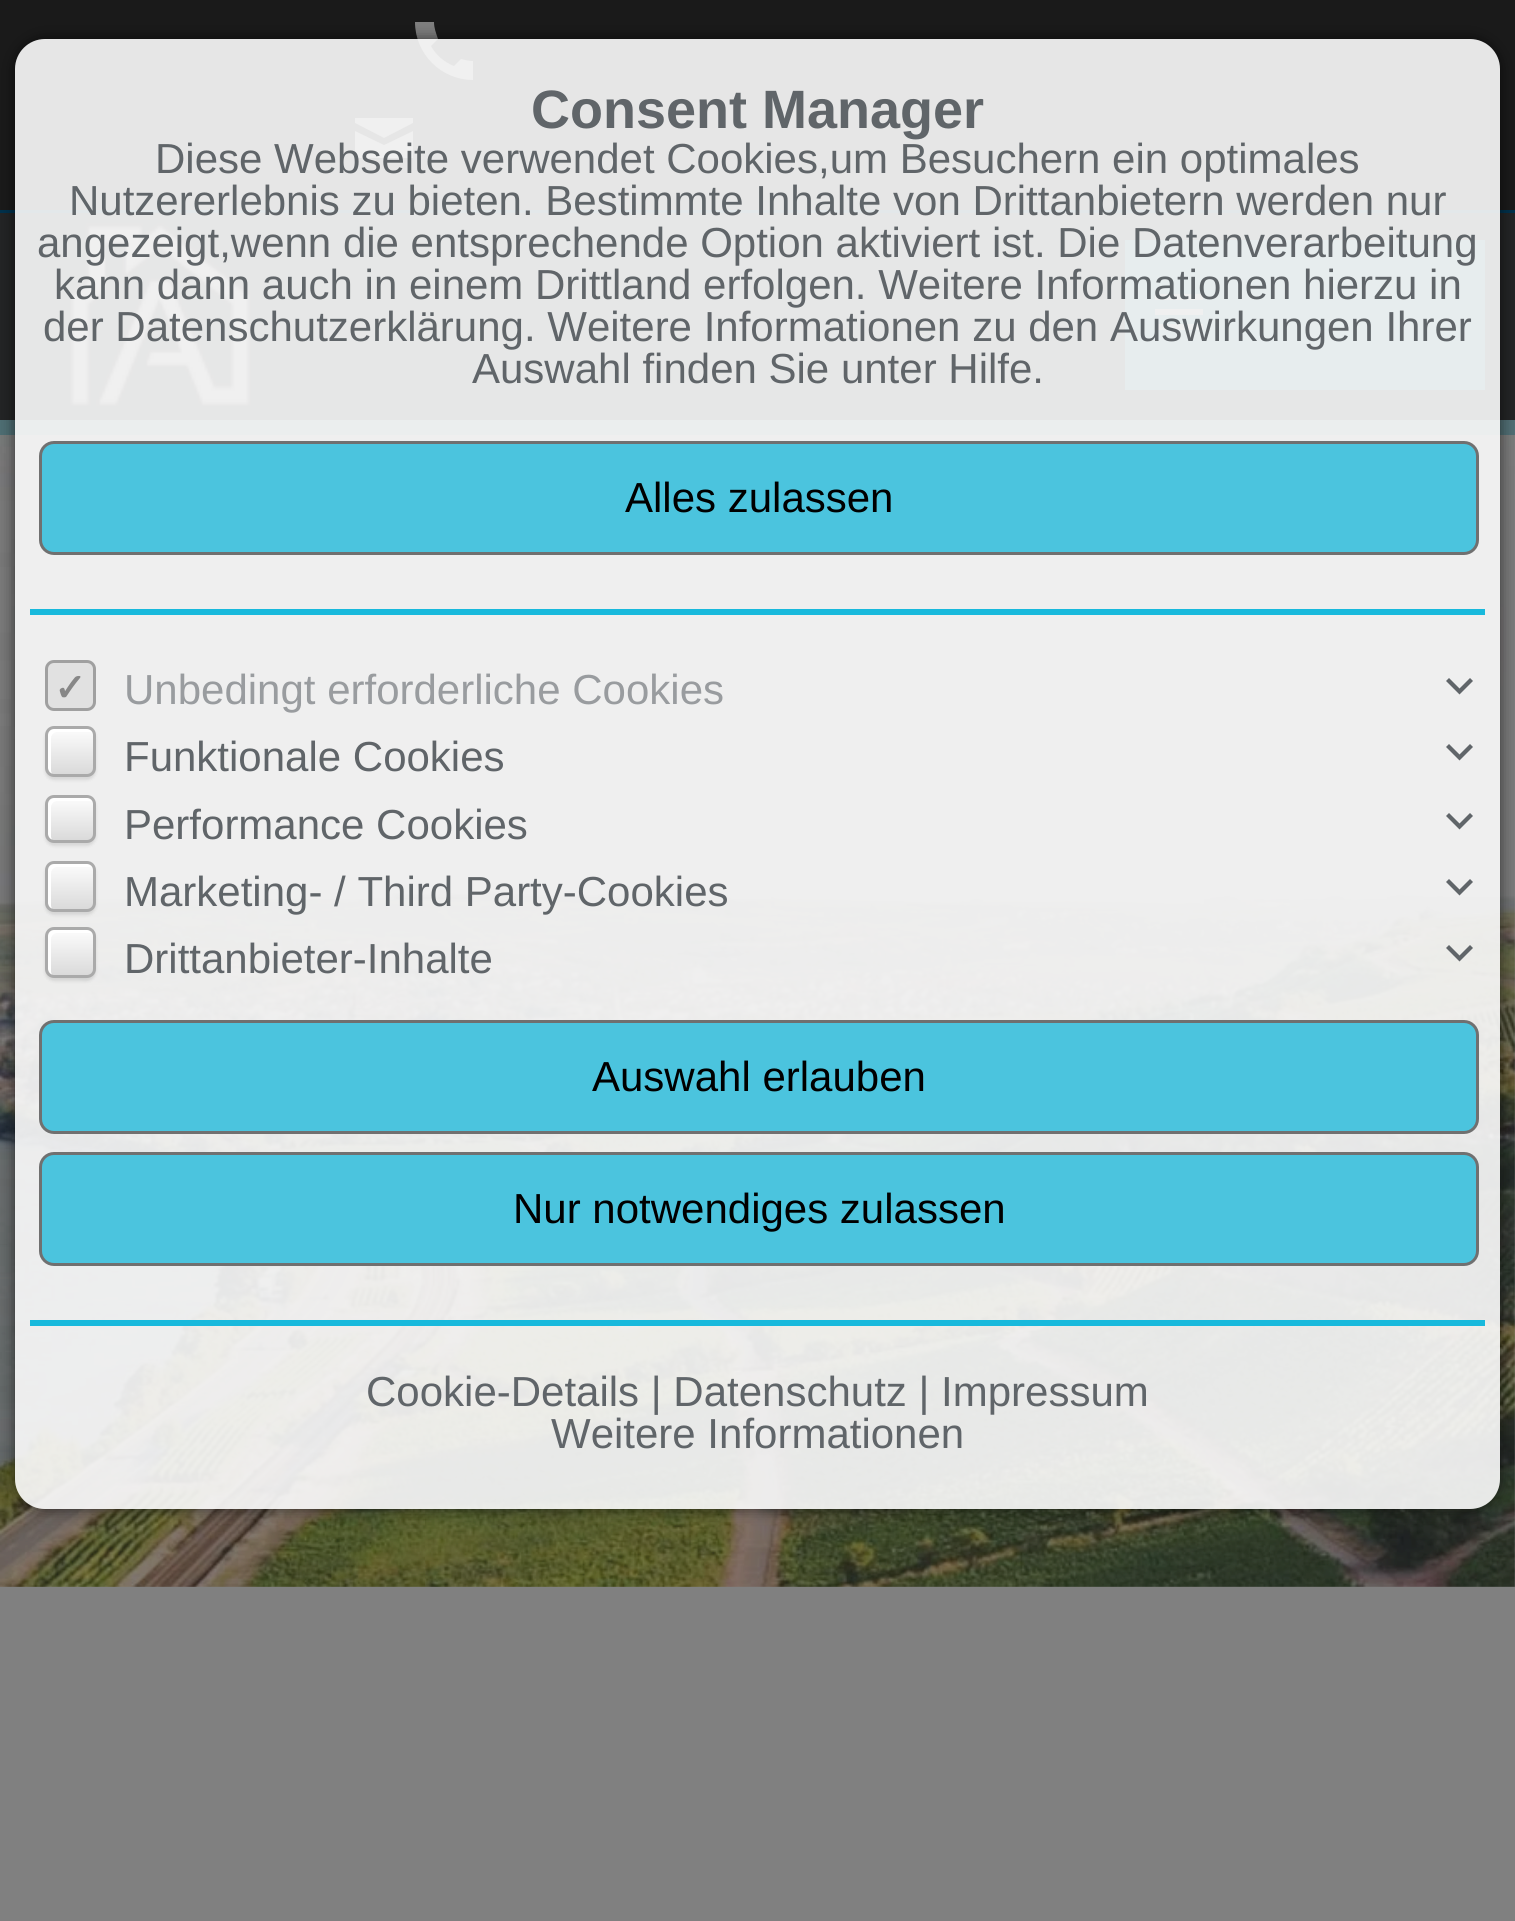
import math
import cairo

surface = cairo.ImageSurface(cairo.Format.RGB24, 1515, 1921)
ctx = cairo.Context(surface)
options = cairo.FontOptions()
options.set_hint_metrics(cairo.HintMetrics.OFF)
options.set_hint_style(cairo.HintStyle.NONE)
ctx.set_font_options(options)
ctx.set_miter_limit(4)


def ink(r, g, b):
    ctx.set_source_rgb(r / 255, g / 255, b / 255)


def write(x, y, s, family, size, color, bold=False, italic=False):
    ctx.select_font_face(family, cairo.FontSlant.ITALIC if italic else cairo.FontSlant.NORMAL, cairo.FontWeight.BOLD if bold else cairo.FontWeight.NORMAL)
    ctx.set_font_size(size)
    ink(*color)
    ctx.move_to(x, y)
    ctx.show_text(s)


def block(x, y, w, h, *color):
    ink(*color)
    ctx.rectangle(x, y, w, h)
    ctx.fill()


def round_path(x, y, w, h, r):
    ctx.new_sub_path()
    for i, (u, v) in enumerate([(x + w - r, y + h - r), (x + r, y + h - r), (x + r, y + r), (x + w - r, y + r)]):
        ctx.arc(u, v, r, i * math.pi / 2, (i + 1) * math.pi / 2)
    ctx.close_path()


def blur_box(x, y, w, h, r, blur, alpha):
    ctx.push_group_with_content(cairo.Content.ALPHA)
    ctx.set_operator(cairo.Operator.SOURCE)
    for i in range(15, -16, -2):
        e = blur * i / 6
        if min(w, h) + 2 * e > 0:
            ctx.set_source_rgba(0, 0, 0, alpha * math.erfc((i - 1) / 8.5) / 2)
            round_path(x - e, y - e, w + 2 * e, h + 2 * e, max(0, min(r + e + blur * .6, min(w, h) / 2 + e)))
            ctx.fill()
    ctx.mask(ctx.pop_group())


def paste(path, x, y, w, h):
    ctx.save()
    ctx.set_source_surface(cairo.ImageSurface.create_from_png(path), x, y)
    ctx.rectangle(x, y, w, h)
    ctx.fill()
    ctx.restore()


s1 = dict(family="Liberation Sans", size=54, color=(96, 101, 105), bold=True)
s2 = dict(family="Liberation Sans", size=42, color=(96, 101, 105))
s3 = dict(family="Liberation Sans", size=42, color=(0, 0, 0))
s4 = dict(family="DejaVu Sans", size=38, color=(135, 135, 135), bold=True)
s5 = dict(family="Liberation Sans", size=42, color=(153, 156, 159))

ink(128, 128, 128)
ctx.paint()
block(0, 213, 1515, 207, 35, 36, 37)
block(0, 0, 1515, 210, 26, 26, 26)
block(0, 210, 1515, 3, 0, 49, 76)
ink(128, 128, 128)
ctx.new_path()
ctx.move_to(461, 59)
ctx.curve_to(465, 60, 469, 61, 473, 61)
ctx.line_to(473, 80)
ctx.curve_to(441, 80, 415, 54, 415, 22)
ctx.line_to(434, 22)
ctx.curve_to(434, 28, 436, 33, 438, 39)
ctx.line_to(431, 46)
ctx.curve_to(436, 55, 444, 62, 454, 66)
ctx.close_path()
ctx.fill()
ctx.new_path()
ctx.move_to(355, 118)
ctx.line_to(413, 118)
ctx.line_to(413, 123)
ctx.line_to(384, 138)
ctx.line_to(355, 123)
ctx.close_path()
ctx.move_to(355, 131)
ctx.line_to(384, 145)
ctx.line_to(413, 131)
ctx.line_to(413, 158)
ctx.line_to(355, 158)
ctx.close_path()
ctx.fill()
paste("pic1.png", 70, 223, 181, 183)
paste("pic2.png", 0, 420, 1515, 1167)
ctx.set_source_rgba(0.149, 0.384, 0.435, 0.5)
ctx.rectangle(0, 420, 1515, 15)
ctx.fill()
block(1125, 240, 360, 150, 38, 98, 111)
ink(128, 128, 128)
ctx.new_path()
ctx.move_to(1155, 330)
ctx.line_to(1155, 324)
ctx.line_to(1203, 324)
ctx.line_to(1203, 330)
ctx.close_path()
ctx.move_to(1155, 294)
ctx.line_to(1203, 294)
ctx.line_to(1203, 300)
ctx.line_to(1155, 300)
ctx.close_path()
ctx.move_to(1155, 315)
ctx.line_to(1155, 309)
ctx.line_to(1203, 309)
ctx.line_to(1203, 315)
ctx.close_path()
ctx.fill()
ctx.save()
ctx.set_fill_rule(cairo.FillRule.EVEN_ODD)
ctx.new_path()
ctx.move_to(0, 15)
ctx.line_to(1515, 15)
ctx.line_to(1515, 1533)
ctx.line_to(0, 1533)
ctx.close_path()
ctx.move_to(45, 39)
ctx.line_to(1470, 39)
ctx.curve_to(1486.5, 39, 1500, 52.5, 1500, 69)
ctx.line_to(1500, 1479)
ctx.curve_to(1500, 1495.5, 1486.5, 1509, 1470, 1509)
ctx.line_to(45, 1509)
ctx.curve_to(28.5, 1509, 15, 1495.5, 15, 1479)
ctx.line_to(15, 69)
ctx.curve_to(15, 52.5, 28.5, 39, 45, 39)
ctx.close_path()
ctx.clip()
ink(0, 0, 0)
blur_box(15, 39, 1485, 1470, 30, 7.5, 0.6)
ctx.restore()
ctx.set_source_rgba(0.988, 0.988, 0.988, 0.9)
round_path(15, 39, 1485, 1470, 30)
ctx.fill()
write(531, 128, "Consent Manager", **s1)
write(155, 173, "Diese Webseite verwendet Cookies,um Besuchern ein optimales", **s2)
write(69, 215, "Nutzererlebnis zu bieten. Bestimmte Inhalte von Drittanbietern werden nur", **s2)
write(37, 257, "angezeigt,wenn die entsprechende Option aktiviert ist. Die Datenverarbeitung", **s2)
write(54, 299, "kann dann auch in einem Drittland erfolgen. Weitere Informationen hierzu in", **s2)
write(43, 341, "der Datenschutzerklärung. Weitere Informationen zu den Auswirkungen Ihrer", **s2)
write(472, 383, "Auswahl finden Sie unter Hilfe.", **s2)
ink(75, 196, 222)
round_path(40.5, 442.5, 1437, 111, 13.5)
ctx.fill_preserve()
ink(112, 112, 112)
ctx.set_line_width(3)
ctx.stroke()
write(625, 512, "Alles zulassen", **s3)
block(30, 609, 1455, 6, 24, 185, 220)
ink(225, 225, 225)
round_path(45, 660, 51, 51, 9)
ctx.fill()
round_path(46.5, 661.5, 48, 48, 7.5)
ctx.set_source_rgba(0.376, 0.376, 0.376, 0.5)
ctx.stroke()
write(54, 701, "✓", **s4)
write(124, 704, "Unbedingt erforderliche Cookies", **s5)
ink(96, 101, 105)
ctx.new_path()
ctx.move_to(1470, 678)
ctx.line_to(1473, 681)
ctx.line_to(1459.5, 694.5)
ctx.line_to(1446, 681)
ctx.line_to(1449, 678)
ctx.line_to(1459.5, 688.5)
ctx.close_path()
ctx.fill()
ink(0, 0, 0)
blur_box(45, 729, 51, 51, 9, 1.5, 0.1)
ctx.save()
round_path(45, 726, 51, 51, 9)
ctx.clip()
gradient = cairo.LinearGradient(71, 729, 71, 774)
gradient.add_color_stop_rgba(0, 0.988, 0.988, 0.988, 1)
gradient.add_color_stop_rgba(1, 0.855, 0.855, 0.855, 1)
ctx.set_source(gradient)
ctx.rectangle(45, 729, 51, 45)
ctx.fill()
ctx.restore()
ink(255, 255, 255)
ctx.new_path()
ctx.move_to(57, 732)
ctx.line_to(90, 732)
ctx.line_to(93, 733)
ctx.curve_to(92, 731, 89, 729, 87, 729)
ctx.line_to(54, 729)
ctx.curve_to(51, 729, 48, 732, 48, 735)
ctx.line_to(48, 768)
ctx.curve_to(48, 770, 50, 773, 52, 774)
ctx.line_to(51, 771)
ctx.line_to(51, 738)
ctx.curve_to(51, 735, 54, 732, 57, 732)
ctx.close_path()
ctx.fill()
round_path(46.5, 727.5, 48, 48, 7.5)
ink(170, 170, 170)
ctx.stroke()
write(124, 771, "Funktionale Cookies", **s2)
ctx.new_path()
ctx.move_to(1470, 744)
ctx.line_to(1473, 747)
ctx.line_to(1459.5, 760.5)
ctx.line_to(1446, 747)
ctx.line_to(1449, 744)
ctx.line_to(1459.5, 754.5)
ctx.close_path()
ctx.fill()
ink(0, 0, 0)
blur_box(45, 798, 51, 48, 9, 1.5, 0.1)
ctx.save()
round_path(45, 795, 51, 48, 9)
ctx.clip()
gradient = cairo.LinearGradient(71, 798, 71, 840)
gradient.add_color_stop_rgba(0, 0.988, 0.988, 0.988, 1)
gradient.add_color_stop_rgba(1, 0.855, 0.855, 0.855, 1)
ctx.set_source(gradient)
ctx.rectangle(45, 798, 51, 42)
ctx.fill()
ctx.restore()
ink(255, 255, 255)
ctx.new_path()
ctx.move_to(57, 801)
ctx.line_to(90, 801)
ctx.line_to(93, 802)
ctx.curve_to(92, 800, 89, 798, 87, 798)
ctx.line_to(54, 798)
ctx.curve_to(51, 798, 48, 801, 48, 804)
ctx.line_to(48, 834)
ctx.curve_to(48, 836, 50, 839, 52, 840)
ctx.line_to(51, 837)
ctx.line_to(51, 807)
ctx.curve_to(51, 804, 54, 801, 57, 801)
ctx.close_path()
ctx.fill()
round_path(46.5, 796.5, 48, 45, 7.5)
ink(170, 170, 170)
ctx.stroke()
write(124, 839, "Performance Cookies", **s2)
ctx.new_path()
ctx.move_to(1470, 813)
ctx.line_to(1473, 816)
ctx.line_to(1459.5, 829.5)
ctx.line_to(1446, 816)
ctx.line_to(1449, 813)
ctx.line_to(1459.5, 823.5)
ctx.close_path()
ctx.fill()
ink(0, 0, 0)
blur_box(45, 864, 51, 51, 9, 1.5, 0.1)
ctx.save()
round_path(45, 861, 51, 51, 9)
ctx.clip()
gradient = cairo.LinearGradient(71, 864, 71, 909)
gradient.add_color_stop_rgba(0, 0.988, 0.988, 0.988, 1)
gradient.add_color_stop_rgba(1, 0.855, 0.855, 0.855, 1)
ctx.set_source(gradient)
ctx.rectangle(45, 864, 51, 45)
ctx.fill()
ctx.restore()
ink(255, 255, 255)
ctx.new_path()
ctx.move_to(57, 867)
ctx.line_to(90, 867)
ctx.line_to(93, 868)
ctx.curve_to(92, 866, 89, 864, 87, 864)
ctx.line_to(54, 864)
ctx.curve_to(51, 864, 48, 867, 48, 870)
ctx.line_to(48, 903)
ctx.curve_to(48, 905, 50, 908, 52, 909)
ctx.line_to(51, 906)
ctx.line_to(51, 873)
ctx.curve_to(51, 870, 54, 867, 57, 867)
ctx.close_path()
ctx.fill()
round_path(46.5, 862.5, 48, 48, 7.5)
ink(170, 170, 170)
ctx.stroke()
write(124, 906, "Marketing- / Third Party-Cookies", **s2)
ctx.new_path()
ctx.move_to(1470, 879)
ctx.line_to(1473, 882)
ctx.line_to(1459.5, 895.5)
ctx.line_to(1446, 882)
ctx.line_to(1449, 879)
ctx.line_to(1459.5, 889.5)
ctx.close_path()
ctx.fill()
ink(0, 0, 0)
blur_box(45, 930, 51, 51, 9, 1.5, 0.1)
ctx.save()
round_path(45, 927, 51, 51, 9)
ctx.clip()
gradient = cairo.LinearGradient(71, 930, 71, 975)
gradient.add_color_stop_rgba(0, 0.988, 0.988, 0.988, 1)
gradient.add_color_stop_rgba(1, 0.855, 0.855, 0.855, 1)
ctx.set_source(gradient)
ctx.rectangle(45, 930, 51, 45)
ctx.fill()
ctx.restore()
ink(255, 255, 255)
ctx.new_path()
ctx.move_to(57, 933)
ctx.line_to(90, 933)
ctx.line_to(93, 934)
ctx.curve_to(92, 932, 89, 930, 87, 930)
ctx.line_to(54, 930)
ctx.curve_to(51, 930, 48, 933, 48, 936)
ctx.line_to(48, 969)
ctx.curve_to(48, 971, 50, 974, 52, 975)
ctx.line_to(51, 972)
ctx.line_to(51, 939)
ctx.curve_to(51, 936, 54, 933, 57, 933)
ctx.close_path()
ctx.fill()
round_path(46.5, 928.5, 48, 48, 7.5)
ink(170, 170, 170)
ctx.stroke()
write(124, 973, "Drittanbieter-Inhalte", **s2)
ctx.new_path()
ctx.move_to(1470, 945)
ctx.line_to(1473, 948)
ctx.line_to(1459.5, 961.5)
ctx.line_to(1446, 948)
ctx.line_to(1449, 945)
ctx.line_to(1459.5, 955.5)
ctx.close_path()
ctx.fill()
ink(75, 196, 222)
round_path(40.5, 1021.5, 1437, 111, 13.5)
ctx.fill_preserve()
ink(112, 112, 112)
ctx.stroke()
write(592, 1091, "Auswahl erlauben", **s3)
ink(75, 196, 222)
round_path(40.5, 1153.5, 1437, 111, 13.5)
ctx.fill_preserve()
ink(112, 112, 112)
ctx.stroke()
write(513, 1223, "Nur notwendiges zulassen", **s3)
block(30, 1320, 1455, 6, 24, 185, 220)
write(366, 1406, "Cookie-Details | Datenschutz | Impressum", **s2)
write(551, 1448, "Weitere Informationen", **s2)
surface.write_to_png("screenshot.png")
